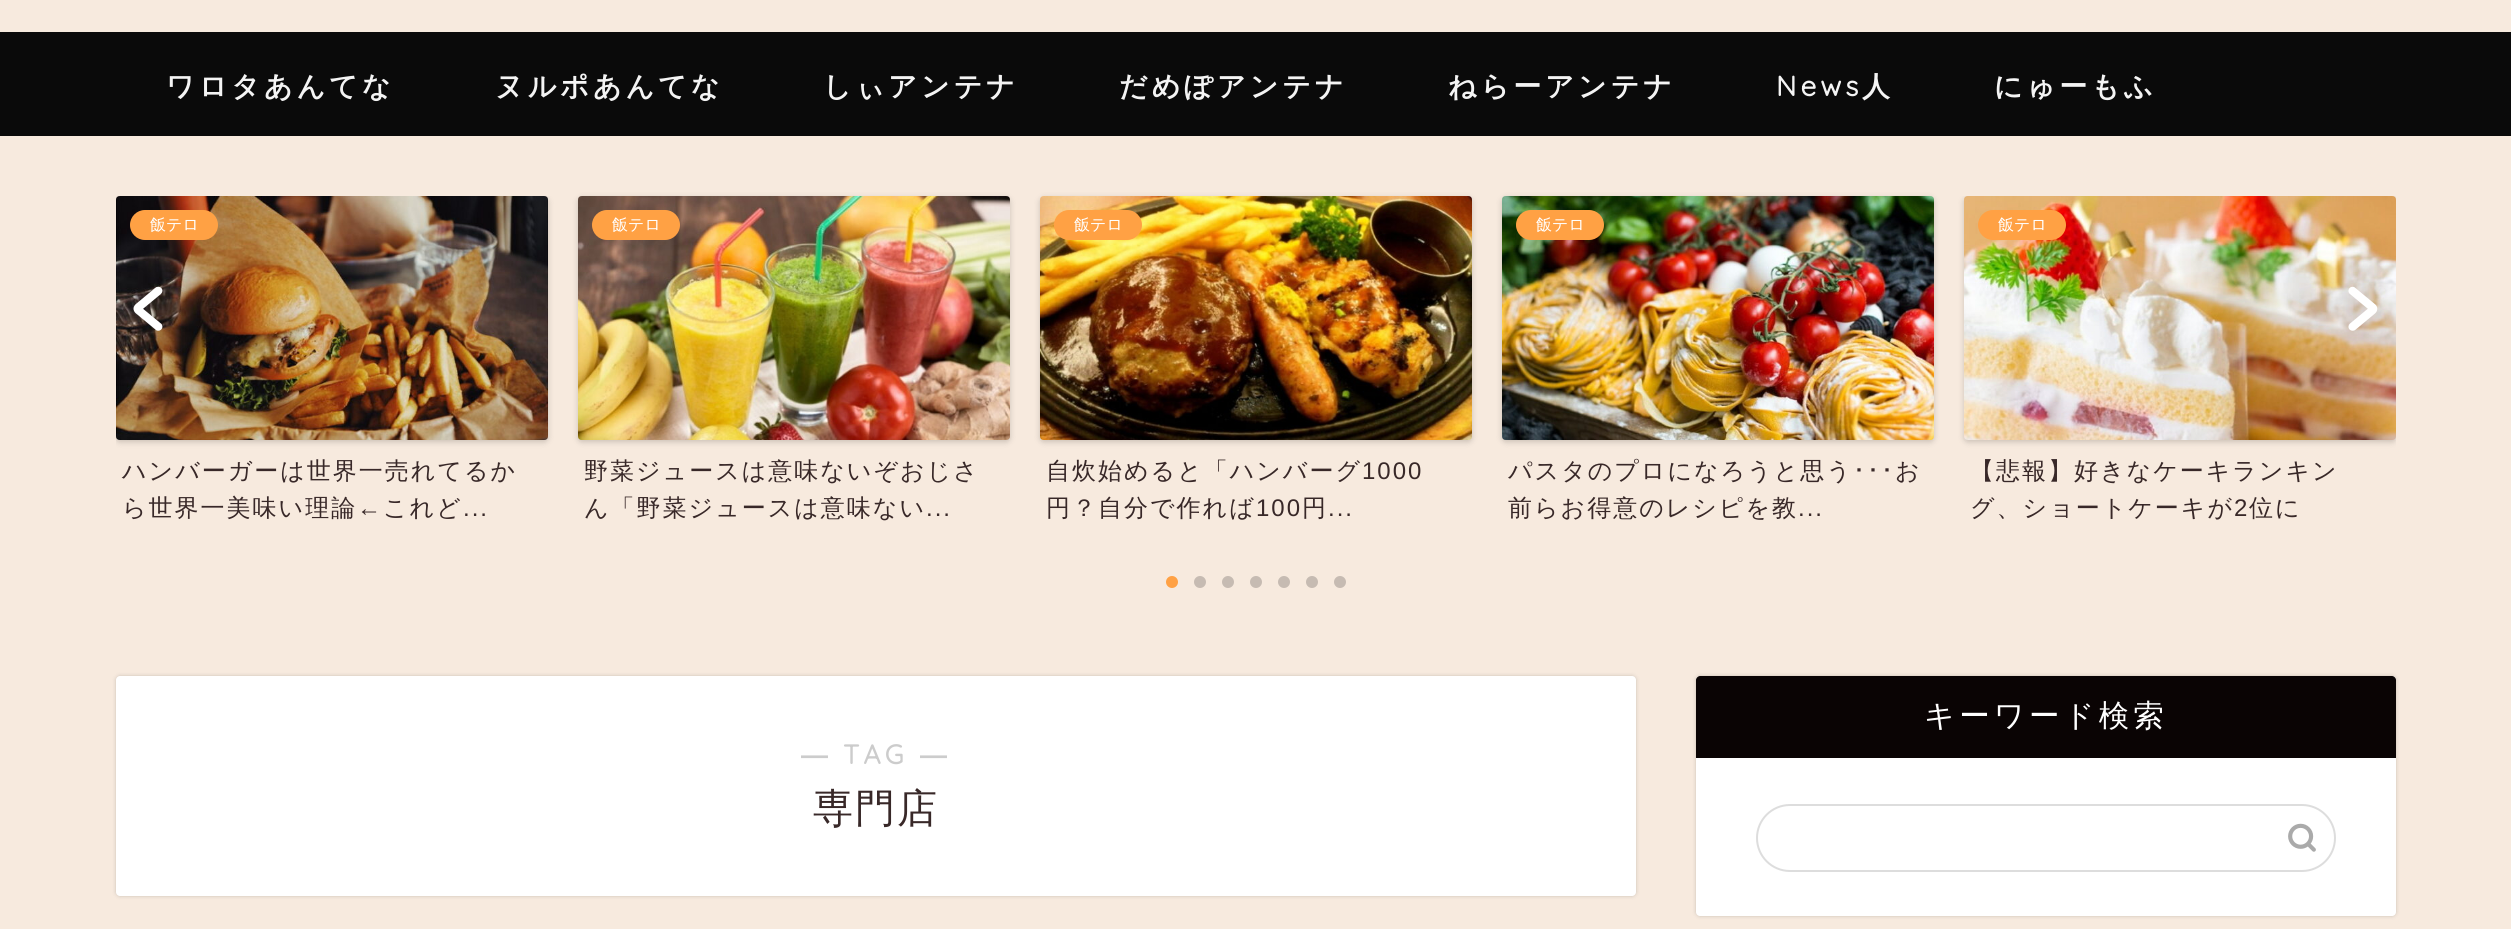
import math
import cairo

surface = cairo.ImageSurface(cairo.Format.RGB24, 2511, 929)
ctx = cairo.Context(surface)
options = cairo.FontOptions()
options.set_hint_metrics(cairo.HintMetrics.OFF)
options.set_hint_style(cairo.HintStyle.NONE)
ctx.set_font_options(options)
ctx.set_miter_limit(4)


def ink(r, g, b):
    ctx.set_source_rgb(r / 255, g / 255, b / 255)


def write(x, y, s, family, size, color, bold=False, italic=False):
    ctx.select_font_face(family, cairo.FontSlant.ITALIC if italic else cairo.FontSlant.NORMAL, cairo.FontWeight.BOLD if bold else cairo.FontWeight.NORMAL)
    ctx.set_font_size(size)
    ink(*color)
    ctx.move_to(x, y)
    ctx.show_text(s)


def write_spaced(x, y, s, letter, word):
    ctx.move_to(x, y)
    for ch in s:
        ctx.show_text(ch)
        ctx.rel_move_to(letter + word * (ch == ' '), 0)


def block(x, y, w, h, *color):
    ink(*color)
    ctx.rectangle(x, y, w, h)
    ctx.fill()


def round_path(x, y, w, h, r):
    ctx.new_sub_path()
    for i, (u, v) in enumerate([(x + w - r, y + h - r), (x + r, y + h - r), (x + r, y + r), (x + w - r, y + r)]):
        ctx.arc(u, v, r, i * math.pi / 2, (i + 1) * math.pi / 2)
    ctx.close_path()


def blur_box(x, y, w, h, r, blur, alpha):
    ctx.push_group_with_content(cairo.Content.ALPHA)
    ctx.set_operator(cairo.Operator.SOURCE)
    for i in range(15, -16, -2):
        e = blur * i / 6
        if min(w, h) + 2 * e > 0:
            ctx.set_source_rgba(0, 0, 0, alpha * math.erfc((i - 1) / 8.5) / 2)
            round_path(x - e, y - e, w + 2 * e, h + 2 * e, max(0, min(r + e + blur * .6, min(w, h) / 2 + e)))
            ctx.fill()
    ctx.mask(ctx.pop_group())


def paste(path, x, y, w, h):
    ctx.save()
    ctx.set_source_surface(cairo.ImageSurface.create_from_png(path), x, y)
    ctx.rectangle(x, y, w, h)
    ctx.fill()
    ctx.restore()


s1 = dict(family="WenQuanYi Zen Hei Medium", size=16, color=(255, 255, 255))

ink(247, 234, 222)
ctx.paint()
block(0, 32, 2511, 104, 10, 10, 10)
ctx.select_font_face("WenQuanYi Zen Hei", cairo.FontSlant.NORMAL, cairo.FontWeight.BOLD)
ctx.set_font_size(28)
ink(244, 244, 244)
write_spaced(166, 96, "ワロタあんてな", 4, 0)
write_spaced(495, 96, "ヌルポあんてな", 4, 0)
write_spaced(823, 96, "しぃアンテナ", 4, 0)
write_spaced(1119, 96, "だめぽアンテナ", 4, 0)
write_spaced(1448, 96, "ねらーアンテナ", 4, 0)
ctx.select_font_face("Quicksand", cairo.FontSlant.NORMAL, cairo.FontWeight.BOLD)
write_spaced(1776, 96, "News", 4, 0)
ctx.select_font_face("WenQuanYi Zen Hei", cairo.FontSlant.NORMAL, cairo.FontWeight.BOLD)
write_spaced(1862, 96, "人", 4, 0)
write_spaced(1994, 96, "にゅーもふ", 4, 0)
ctx.save()
ctx.rectangle(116, 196, 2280, 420)
ctx.clip()
ink(0, 0, 0)
blur_box(116, 198, 432, 244, 4, 3, 0.18)
ctx.restore()
paste("pic1.png", 116, 196, 432, 244)
ink(255, 161, 68)
round_path(130, 210, 88, 30, 15)
ctx.fill()
write(150, 230, "飯テロ", **s1)
ctx.set_font_size(24)
ink(56, 40, 40)
write_spaced(122, 479, "ハンバーガーは世界一売れてるか", 2, 0)
write_spaced(122, 516, "ら世界一美味い理論", 2, 0)
ctx.select_font_face("Liberation Sans")
write_spaced(357, 516, "←", 2, 0)
ctx.select_font_face("WenQuanYi Zen Hei Medium")
write_spaced(383, 516, "これど", 2, 0)
ctx.select_font_face("Liberation Sans")
write_spaced(463, 516, "...", 2, 0)
ink(0, 0, 0)
blur_box(578, 198, 432, 244, 4, 3, 0.18)
paste("pic2.png", 578, 196, 432, 244)
ink(255, 161, 68)
round_path(592, 210, 88, 30, 15)
ctx.fill()
write(612, 230, "飯テロ", **s1)
ctx.set_font_size(24)
ink(56, 40, 40)
write_spaced(584, 479, "野菜ジュースは意味ないぞおじさ", 2, 0)
write_spaced(584, 516, "ん「野菜ジュースは意味ない", 2, 0)
ctx.select_font_face("Liberation Sans")
write_spaced(926, 516, "...", 2, 0)
ink(0, 0, 0)
blur_box(1040, 198, 432, 244, 4, 3, 0.18)
paste("pic3.png", 1040, 196, 432, 244)
ink(255, 161, 68)
round_path(1054, 210, 88, 30, 15)
ctx.fill()
write(1074, 230, "飯テロ", **s1)
ctx.set_font_size(24)
ink(56, 40, 40)
write_spaced(1046, 479, "自炊始めると「ハンバーグ", 2, 0)
ctx.select_font_face("Liberation Sans")
write_spaced(1362, 479, "1000", 2, 0)
ctx.select_font_face("WenQuanYi Zen Hei Medium")
write_spaced(1046, 516, "円？自分で作れば", 2, 0)
ctx.select_font_face("Liberation Sans")
write_spaced(1256, 516, "100", 2, 0)
ctx.select_font_face("WenQuanYi Zen Hei Medium")
write_spaced(1302, 516, "円", 2, 0)
ctx.select_font_face("Liberation Sans")
write_spaced(1328, 516, "...", 2, 0)
ink(0, 0, 0)
blur_box(1502, 198, 432, 244, 4, 3, 0.18)
paste("pic4.png", 1502, 196, 432, 244)
ink(255, 161, 68)
round_path(1516, 210, 88, 30, 15)
ctx.fill()
write(1536, 230, "飯テロ", **s1)
ctx.set_font_size(24)
ink(56, 40, 40)
write_spaced(1508, 479, "パスタのプロになろうと思う", 2, 0)
ctx.select_font_face("IPAPGothic")
write_spaced(1853, 479, "･･･", 2, 0)
ctx.select_font_face("WenQuanYi Zen Hei Medium")
write_spaced(1895, 479, "お", 2, 0)
write_spaced(1508, 516, "前らお得意のレシピを教", 2, 0)
ctx.select_font_face("Liberation Sans")
write_spaced(1798, 516, "...", 2, 0)
ctx.save()
ctx.rectangle(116, 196, 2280, 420)
ctx.clip()
ink(0, 0, 0)
blur_box(1964, 198, 432, 244, 4, 3, 0.18)
ctx.restore()
paste("pic5.png", 1964, 196, 432, 244)
ink(255, 161, 68)
round_path(1978, 210, 88, 30, 15)
ctx.fill()
write(1998, 230, "飯テロ", **s1)
ctx.set_font_size(24)
ink(56, 40, 40)
write_spaced(1970, 479, "【悲報】好きなケーキランキン", 2, 0)
write_spaced(1970, 516, "グ、ショートケーキが", 2, 0)
ctx.select_font_face("Liberation Sans")
write_spaced(2234, 516, "2", 2, 0)
ctx.select_font_face("WenQuanYi Zen Hei Medium")
write_spaced(2249, 516, "位に", 2, 0)
paste("pic6.png", 133, 286, 30, 45)
paste("pic7.png", 2348, 286, 30, 45)
ink(255, 161, 68)
ctx.arc(1172, 582, 6, 0, 2 * math.pi)
ctx.fill()
ink(198, 187, 178)
ctx.arc(1200, 582, 6, 0, 2 * math.pi)
ctx.fill()
ctx.arc(1228, 582, 6, 0, 2 * math.pi)
ctx.fill()
ctx.arc(1256, 582, 6, 0, 2 * math.pi)
ctx.fill()
ctx.arc(1284, 582, 6, 0, 2 * math.pi)
ctx.fill()
ctx.arc(1312, 582, 6, 0, 2 * math.pi)
ctx.fill()
ctx.arc(1340, 582, 6, 0, 2 * math.pi)
ctx.fill()
ink(0, 0, 0)
blur_box(1696, 676, 700, 240, 4, 2, 0.18)
ink(255, 255, 255)
round_path(1696, 676, 700, 240, 4)
ctx.fill()
ink(10, 4, 4)
ctx.new_path()
ctx.move_to(1700, 676)
ctx.line_to(2392, 676)
ctx.curve_to(2394, 676, 2396, 678, 2396, 680)
ctx.line_to(2396, 758)
ctx.line_to(1696, 758)
ctx.line_to(1696, 680)
ctx.curve_to(1696, 678, 1698, 676, 1700, 676)
ctx.close_path()
ctx.fill()
ctx.set_font_size(30.5)
ink(255, 255, 255)
write_spaced(1924, 726, "キーワード検索", 4, 0)
round_path(1757, 805, 578, 66, 33)
ink(221, 221, 221)
ctx.stroke()
paste("pic8.png", 2288, 823, 28, 29)
ink(0, 0, 0)
blur_box(116, 676, 1520, 220, 4, 2, 0.18)
ink(255, 255, 255)
round_path(116, 676, 1520, 220, 4)
ctx.fill()
ctx.select_font_face("Liberation Sans", cairo.FontSlant.NORMAL, cairo.FontWeight.BOLD)
ctx.set_font_size(27)
ink(204, 204, 204)
write_spaced(801, 764, "―", 4, 0)
ctx.select_font_face("Quicksand", cairo.FontSlant.NORMAL, cairo.FontWeight.BOLD)
write_spaced(843, 764, "TAG", 4, 0)
ctx.select_font_face("Liberation Sans", cairo.FontSlant.NORMAL, cairo.FontWeight.BOLD)
write_spaced(920, 764, "―", 4, 0)
ctx.select_font_face("WenQuanYi Zen Hei Medium")
ctx.set_font_size(40)
ink(56, 40, 40)
write_spaced(813, 822, "専門店", 2, 0)
surface.write_to_png("screenshot.png")
